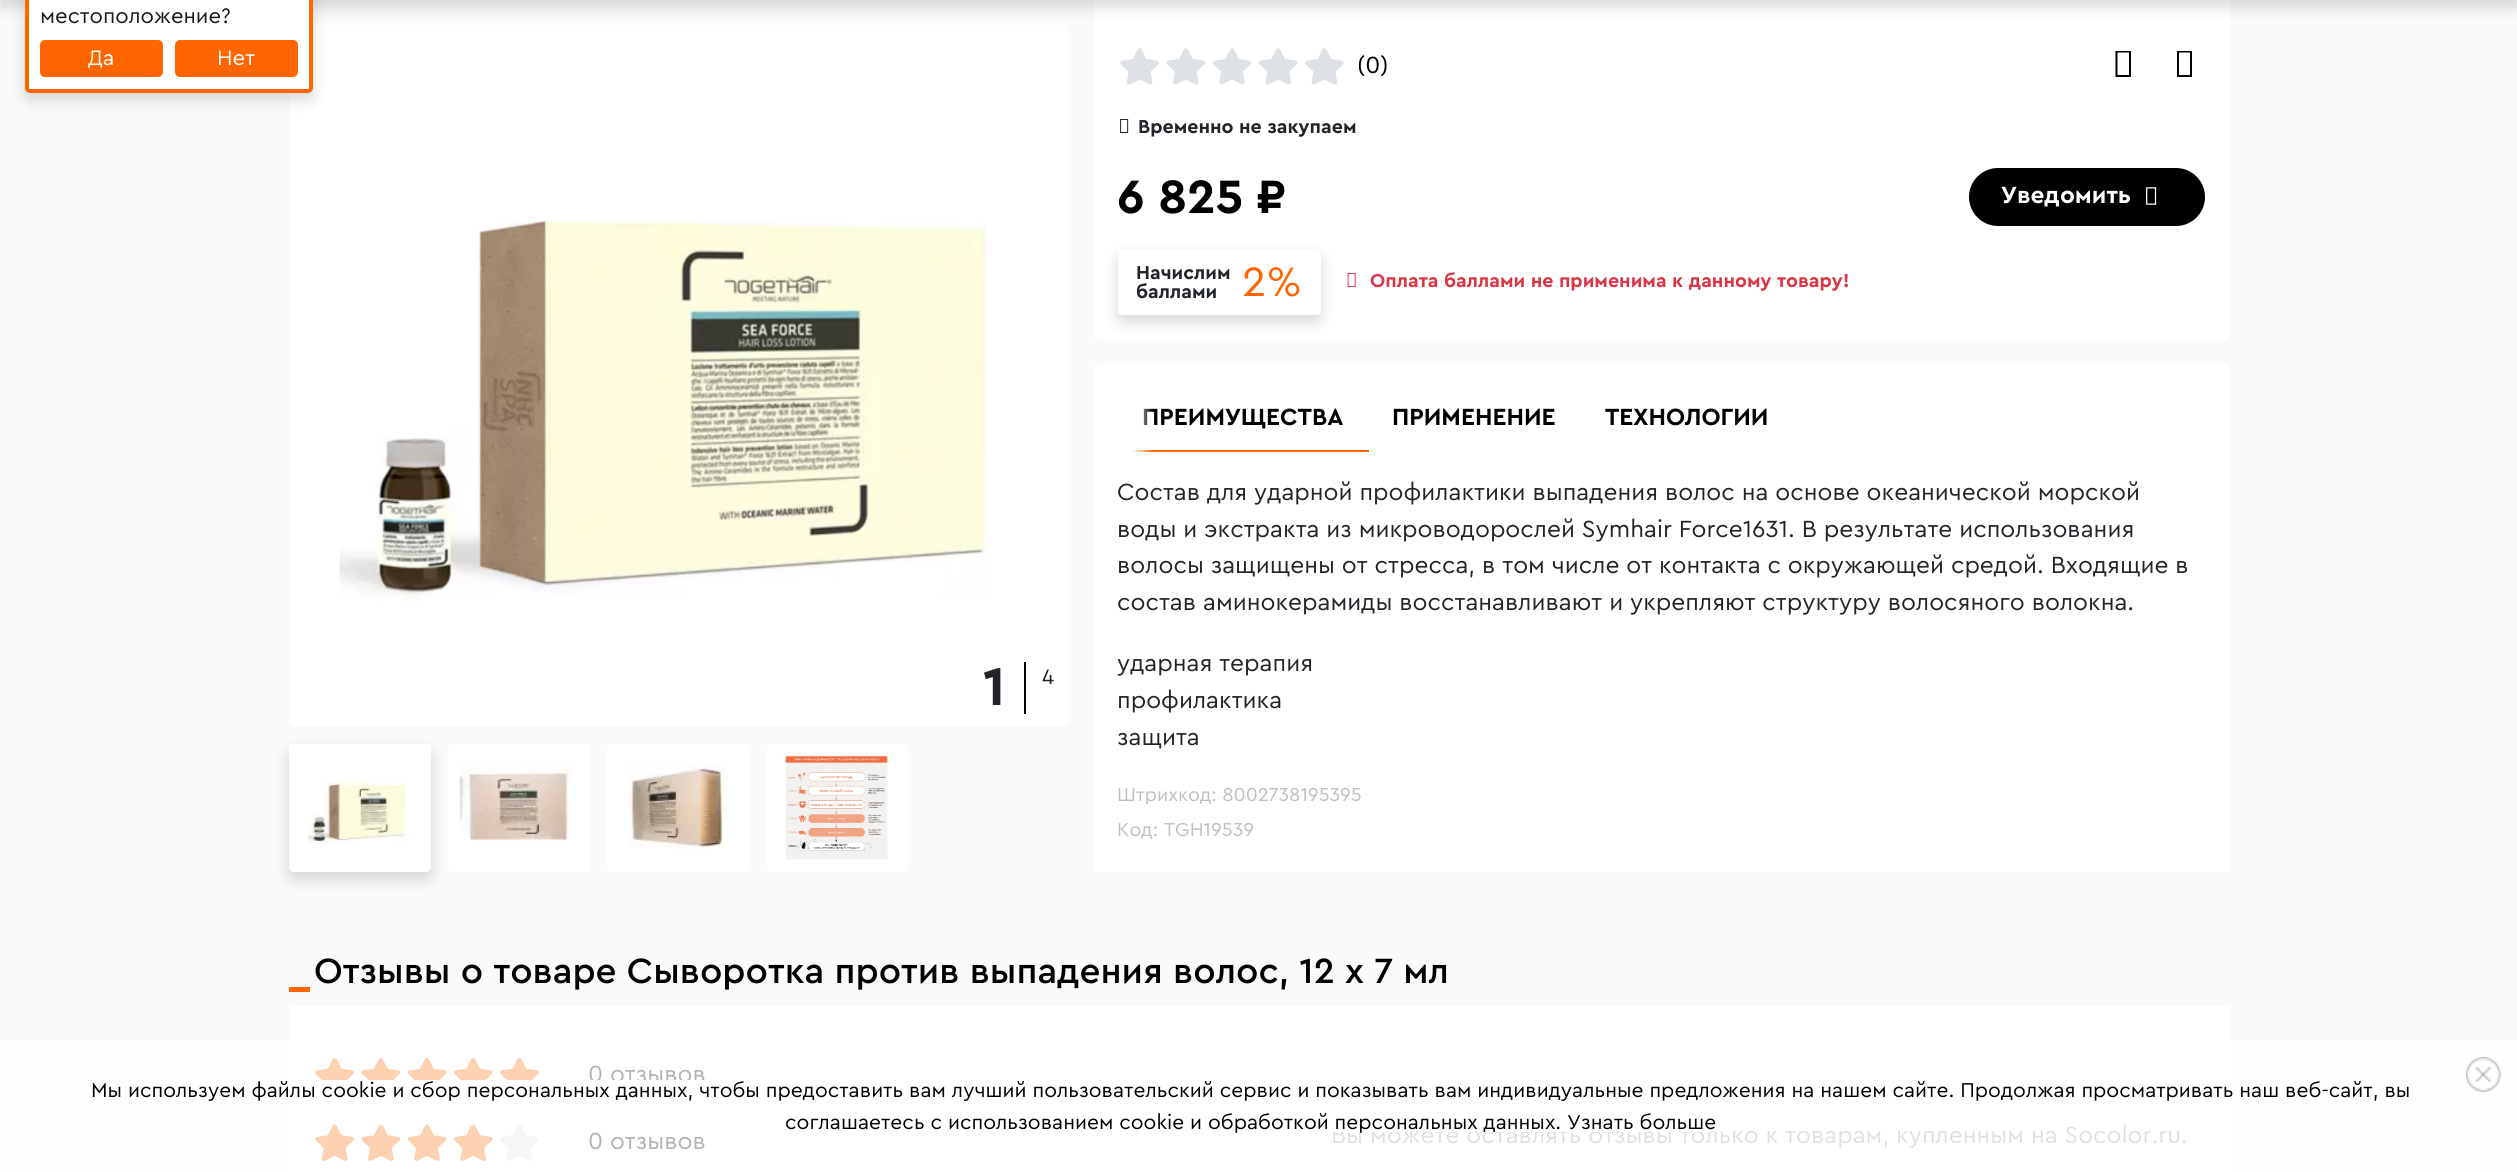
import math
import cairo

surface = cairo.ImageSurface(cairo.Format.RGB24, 2517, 1172)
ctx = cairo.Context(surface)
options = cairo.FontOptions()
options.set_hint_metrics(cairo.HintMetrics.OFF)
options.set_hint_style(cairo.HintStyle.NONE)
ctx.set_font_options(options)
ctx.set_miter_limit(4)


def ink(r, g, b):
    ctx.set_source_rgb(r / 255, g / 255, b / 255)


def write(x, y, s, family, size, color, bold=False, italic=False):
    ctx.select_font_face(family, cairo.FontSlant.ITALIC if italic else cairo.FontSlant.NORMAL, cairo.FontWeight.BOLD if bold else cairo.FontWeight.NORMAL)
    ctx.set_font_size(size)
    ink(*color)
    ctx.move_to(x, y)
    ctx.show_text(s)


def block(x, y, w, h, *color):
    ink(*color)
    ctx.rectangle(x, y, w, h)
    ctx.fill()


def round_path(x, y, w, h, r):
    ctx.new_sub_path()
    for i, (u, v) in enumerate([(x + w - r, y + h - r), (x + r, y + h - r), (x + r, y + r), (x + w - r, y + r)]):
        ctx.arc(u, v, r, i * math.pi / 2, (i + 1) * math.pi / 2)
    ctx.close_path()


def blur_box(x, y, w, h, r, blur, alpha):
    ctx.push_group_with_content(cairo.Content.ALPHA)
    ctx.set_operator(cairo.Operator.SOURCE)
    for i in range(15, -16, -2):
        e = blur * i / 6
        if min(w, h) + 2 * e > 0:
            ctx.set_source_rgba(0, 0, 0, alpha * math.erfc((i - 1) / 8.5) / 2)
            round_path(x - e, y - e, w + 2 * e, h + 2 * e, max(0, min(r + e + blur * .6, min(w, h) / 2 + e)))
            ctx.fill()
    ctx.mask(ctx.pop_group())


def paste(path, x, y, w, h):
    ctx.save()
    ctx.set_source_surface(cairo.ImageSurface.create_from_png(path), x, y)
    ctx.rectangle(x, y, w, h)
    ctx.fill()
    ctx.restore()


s1 = dict(family="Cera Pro", size=22, color=(26, 26, 26))
s2 = dict(family="Cera Pro", size=22, color=(255, 255, 255))
s3 = dict(family="Cera Pro", size=56, color=(33, 37, 41), bold=True)
s4 = dict(family="Cera Pro", size=22, color=(33, 37, 41))
s5 = dict(family="Cera Pro", size=24.5, color=(0, 0, 0))
s6 = dict(family="Cera Pro", size=19.6, color=(33, 37, 41), bold=True)
s7 = dict(family="Cera Pro", size=49, color=(0, 0, 0), bold=True)
s8 = dict(family="Cera Pro", size=24.5, color=(255, 255, 255), bold=True)
s9 = dict(family="Cera Pro", size=43, color=(255, 102, 0))
s10 = dict(family="Cera Pro", size=19.6, color=(220, 53, 69), bold=True)
s11 = dict(family="Cera Pro", size=24.5, color=(0, 0, 0), bold=True)
s12 = dict(family="Cera Pro", size=24.5, color=(33, 37, 41))
s13 = dict(family="Cera Pro", size=19.6, color=(191, 191, 191))
s14 = dict(family="Cera Pro Medium", size=36.75, color=(0, 0, 0))
s15 = dict(family="Cera Pro", size=24.5, color=(179, 179, 179))
s16 = dict(family="Cera Pro", size=24.5, color=(224, 224, 224))
s17 = dict(family="Cera Pro", size=21, color=(0, 0, 0))

ink(250, 250, 250)
ctx.paint()
block(0, 1040, 2517, 132, 254, 254, 254)
ink(255, 255, 255)
round_path(289, 25, 779, 701, 5)
ctx.fill()
round_path(1094, -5, 1136, 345, 5)
ctx.fill()
ink(0, 0, 0)
blur_box(0, -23, 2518, 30, 0, 7.5, 0.15)
blur_box(25, -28, 288, 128, 5, 7.5, 0.15)
ink(255, 255, 255)
round_path(27, -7, 284, 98, 3)
ctx.fill_preserve()
ink(255, 102, 0)
ctx.set_line_width(4)
ctx.stroke()
write(40, 23, "местоположение?", **s1)
ink(255, 102, 0)
round_path(40, 40, 123, 37, 5)
ctx.fill()
write(88, 65, "Да", **s2)
ink(255, 102, 0)
round_path(175, 40, 123, 37, 5)
ctx.fill()
write(217, 65, "Нет", **s2)
paste("pic1.png", 339, 220, 649, 381)
block(1024, 662, 2, 52, 0, 0, 0)
write(983, 705, "1", **s3)
write(1042, 684, "4", **s4)
ink(0, 0, 0)
blur_box(289, 751, 142, 128, 5, 7.5, 0.15)
ink(255, 255, 255)
round_path(289, 744, 142, 128, 5)
ctx.fill()
paste("pic2.png", 307, 780, 100, 65)
round_path(448, 744, 142, 128, 5)
ctx.fill()
paste("pic3.png", 459, 765, 114, 76)
round_path(607, 744, 142, 128, 5)
ctx.fill()
paste("pic4.png", 628, 763, 100, 86)
round_path(767, 744, 141, 128, 5)
ctx.fill()
paste("pic5.png", 785, 756, 103, 104)
block(1120, 48, 224, 37, 222, 226, 230)
paste("pic6.png", 1118, 46, 228, 42)
write(1357, 73, "(0)", **s5)
ctx.new_path()
ctx.move_to(2115.5, 77)
ctx.line_to(2115.5, 51)
ctx.line_to(2131, 51)
ctx.line_to(2131, 77)
ctx.close_path()
ctx.move_to(2117.5, 75)
ctx.line_to(2129, 75)
ctx.line_to(2129, 52.5)
ctx.line_to(2117.5, 52.5)
ctx.close_path()
ctx.fill()
ctx.new_path()
ctx.move_to(2177, 77)
ctx.line_to(2177, 51)
ctx.line_to(2192, 51)
ctx.line_to(2192, 77)
ctx.close_path()
ctx.move_to(2179, 75)
ctx.line_to(2190, 75)
ctx.line_to(2190, 52.5)
ctx.line_to(2179, 52.5)
ctx.close_path()
ctx.fill()
paste("pic7.png", 1120, 119, 9, 14)
write(1138, 133, "Временно не закупаем", **s6)
write(1117, 213, "6 825 ₽", **s7)
round_path(1970, 169, 234, 56, 28)
ctx.fill_preserve()
ctx.set_line_width(2)
ctx.stroke()
write(2001, 203, "Уведомить", **s8)
paste("pic8.png", 2146, 187, 11, 18)
ctx.save()
ctx.set_fill_rule(cairo.FillRule.EVEN_ODD)
ctx.new_path()
ctx.move_to(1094, 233)
ctx.line_to(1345, 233)
ctx.line_to(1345, 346)
ctx.line_to(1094, 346)
ctx.close_path()
ctx.move_to(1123, 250)
ctx.line_to(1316, 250)
ctx.curve_to(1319, 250, 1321, 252, 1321, 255)
ctx.line_to(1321, 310)
ctx.curve_to(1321, 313, 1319, 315, 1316, 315)
ctx.line_to(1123, 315)
ctx.curve_to(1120, 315, 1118, 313, 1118, 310)
ctx.line_to(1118, 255)
ctx.curve_to(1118, 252, 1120, 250, 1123, 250)
ctx.close_path()
ctx.clip()
ink(0, 0, 0)
blur_box(1118, 257, 203, 65, 5, 7.5, 0.15)
ctx.restore()
write(1136, 279, "Начислим", **s6)
write(1136, 298, "баллами", **s6)
write(1242, 296, "2%", **s9)
paste("pic9.png", 1347, 273, 9, 14)
write(1370, 287, "Оплата баллами не применима к данному товару!", **s10)
ink(255, 255, 255)
round_path(1094, 364, 1136, 508, 5)
ctx.fill()
block(1132, 450, 237, 2, 255, 102, 0)
write(1142, 425, "ПРЕИМУЩЕСТВА", **s11)
gradient = cairo.LinearGradient(1118, 420, 1153, 420)
gradient.add_color_stop_rgba(0.4, 1, 1, 1, 1)
gradient.add_color_stop_rgba(1, 1, 1, 1, 0)
ctx.set_source(gradient)
ctx.rectangle(1132, 408, 21, 44)
ctx.fill()
write(1392, 425, "ПРИМЕНЕНИЕ", **s11)
write(1605, 425, "ТЕХНОЛОГИИ", **s11)
write(1117, 500, "Состав для ударной профилактики выпадения волос на основе океанической морской", **s12)
write(1117, 537, "воды и экстракта из микроводорослей Symhair Force1631. В результате использования", **s12)
write(1117, 573, "волосы защищены от стресса, в том числе от контакта с окружающей средой. Входящие в", **s12)
write(1117, 610, "состав аминокерамиды восстанавливают и укрепляют структуру волосяного волокна.", **s12)
write(1117, 671, "ударная терапия", **s12)
write(1117, 708, "профилактика", **s12)
write(1117, 745, "защита", **s12)
write(1117, 801, "Штрихкод: 8002738195395", **s13)
write(1117, 836, "Код: TGH19539", **s13)
block(289, 987, 21, 5, 255, 102, 0)
write(314, 983, "Отзывы о товаре Сыворотка против выпадения волос, 12 х 7 мл", **s14)
ink(255, 255, 255)
round_path(289, 1006, 1942, 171, 5)
ctx.fill()
block(315, 1058, 224, 22, 255, 209, 179)
paste("pic10.png", 313, 1055, 230, 25)
write(588, 1082, "0 отзывов", **s15)
block(500, 1124, 39, 37, 245, 246, 248)
block(315, 1124, 178, 37, 255, 209, 179)
paste("pic11.png", 313, 1122, 230, 42)
write(588, 1149, "0 отзывов", **s15)
write(1331, 1143, "Вы можете оставлять отзывы только к товарам, купленным на Socolor.ru.", **s16)
block(591, 1080, 113, 3, 255, 255, 255)
write(91, 1097, "Мы используем файлы cookie и сбор персональных данных, чтобы предоставить вам лучший пользовательский сервис и показывать вам индивидуальные предложения на нашем сайте. Продолжая просматривать наш веб-сайт, вы", **s17)
paste("pic12.png", 2466, 1057, 35, 35)
block(1333, 1126, 233, 6, 255, 255, 255)
block(1566, 1130, 151, 2, 255, 255, 255)
write(785, 1129, "соглашаетесь c использованием cookie и обработкой персональных данных. Узнать больше", **s17)
surface.write_to_png("screenshot.png")
